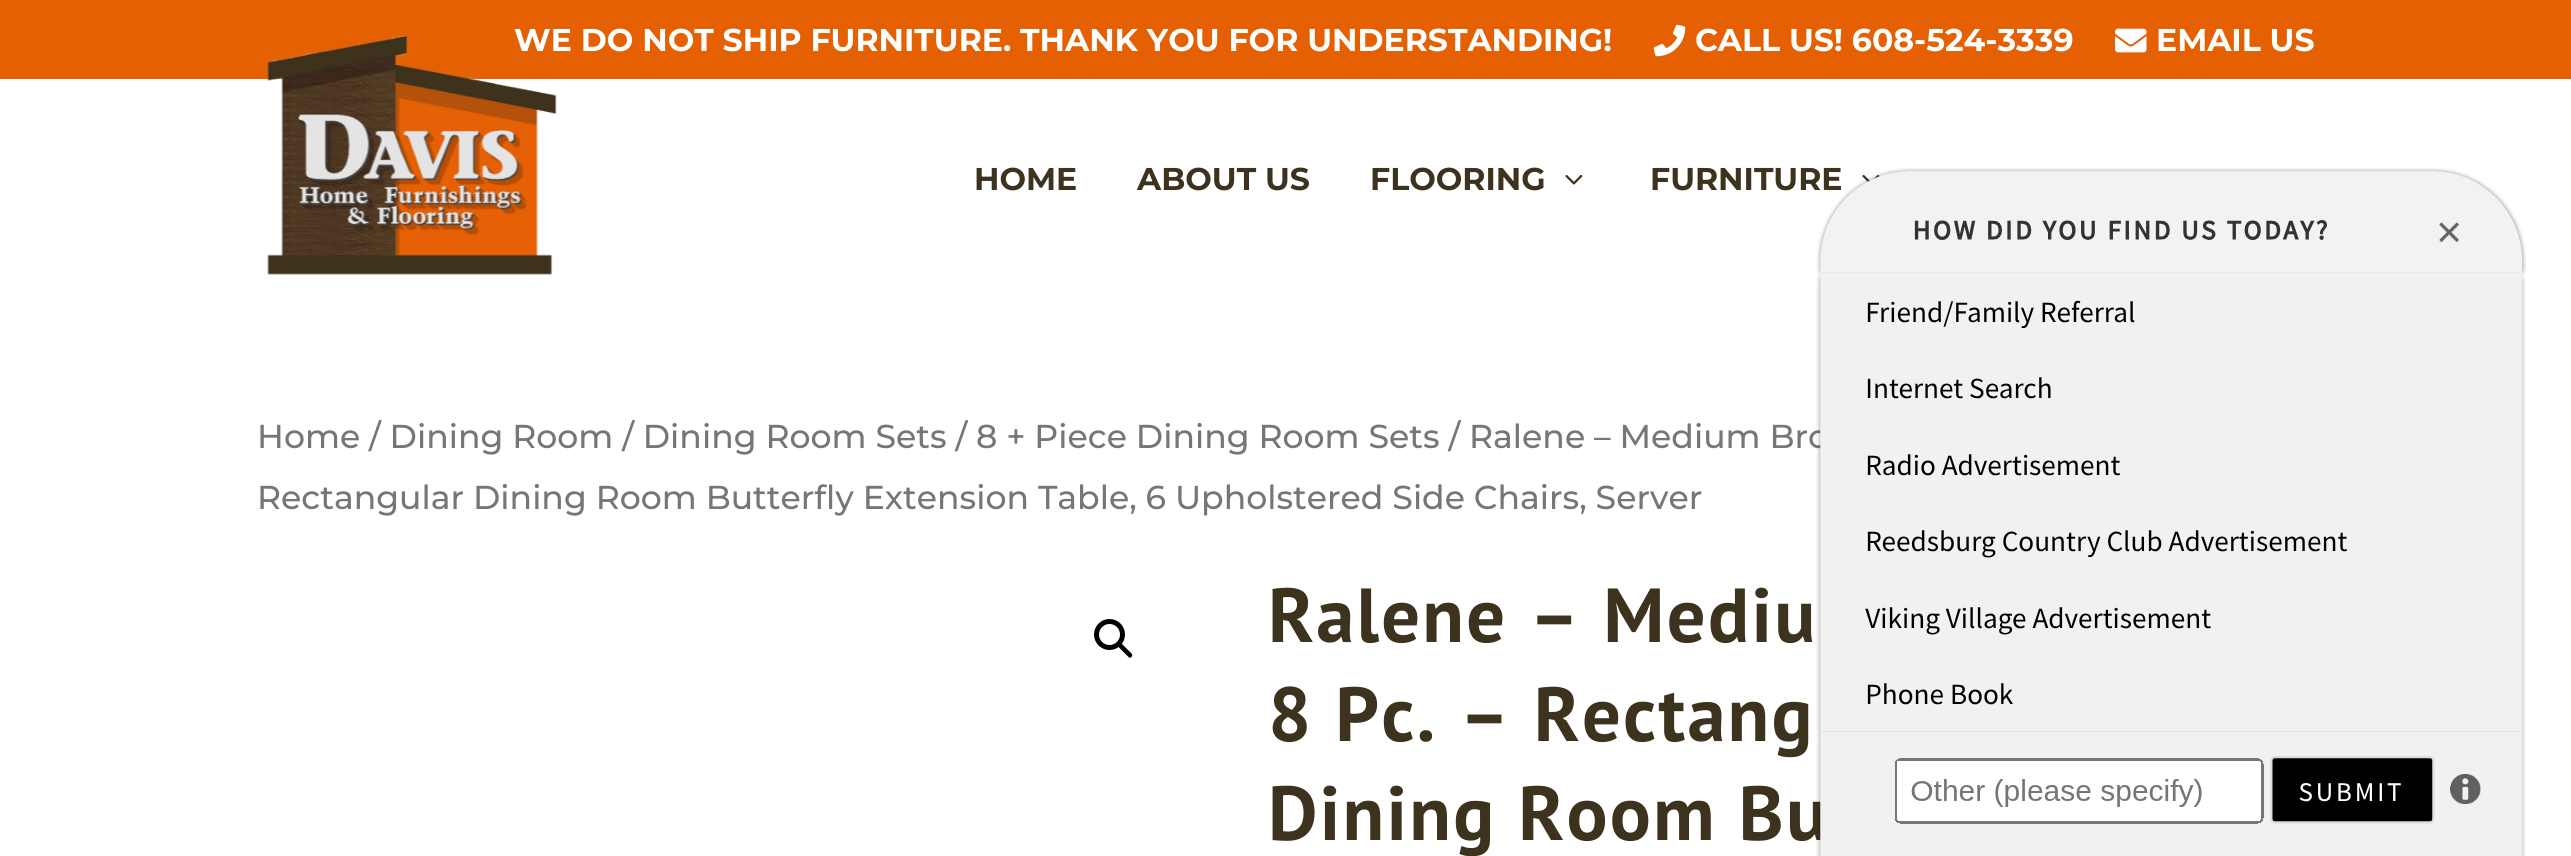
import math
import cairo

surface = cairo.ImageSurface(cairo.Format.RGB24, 2571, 856)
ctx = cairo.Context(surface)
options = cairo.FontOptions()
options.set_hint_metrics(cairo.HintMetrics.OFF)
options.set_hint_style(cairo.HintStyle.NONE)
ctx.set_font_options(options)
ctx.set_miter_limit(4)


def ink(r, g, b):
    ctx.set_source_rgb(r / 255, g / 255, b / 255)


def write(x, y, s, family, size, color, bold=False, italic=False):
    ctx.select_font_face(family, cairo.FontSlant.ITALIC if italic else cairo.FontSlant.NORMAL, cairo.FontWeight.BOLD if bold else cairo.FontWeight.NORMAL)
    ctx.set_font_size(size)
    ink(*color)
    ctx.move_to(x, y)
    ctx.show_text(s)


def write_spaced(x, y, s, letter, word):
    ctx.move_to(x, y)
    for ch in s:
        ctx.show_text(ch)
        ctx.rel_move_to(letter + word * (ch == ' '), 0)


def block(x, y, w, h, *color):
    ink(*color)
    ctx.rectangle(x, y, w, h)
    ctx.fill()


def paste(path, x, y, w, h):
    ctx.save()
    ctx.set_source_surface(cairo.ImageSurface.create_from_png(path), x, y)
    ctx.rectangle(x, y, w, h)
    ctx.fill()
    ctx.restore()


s1 = dict(family="Montserrat", size=31.5, color=(255, 255, 255), bold=True)
s2 = dict(family="Montserrat", size=31.5, color=(60, 50, 30), bold=True)
s3 = dict(family="Montserrat Medium", size=33.1, color=(118, 118, 118))

ink(255, 255, 255)
ctx.paint()
block(0, 0, 2571, 79, 228, 96, 3)
write(514, 51, "WE DO NOT SHIP FURNITURE. THANK YOU FOR UNDERSTANDING!", **s1)
paste("pic1.png", 1653, 24, 33, 33)
write(1695, 51, "CALL US! 608-524-3339", **s1)
paste("pic2.png", 2115, 28, 32, 25)
write(2156, 51, "EMAIL US", **s1)
paste("pic3.png", 267, 36, 290, 239)
write(974, 190, "HOME", **s2)
write(1137, 190, "ABOUT US", **s2)
write(1370, 190, "FLOORING", **s2)
paste("pic4.png", 1565, 175, 18, 10)
write(1650, 190, "FURNITURE", **s2)
paste("pic5.png", 1862, 175, 18, 7)
write(257, 448, "Home / Dining Room / Dining Room Sets / 8 + Piece Dining Room Sets / Ralene – Medium Bro", **s3)
write(257, 509, "Rectangular Dining Room Butterfly Extension Table, 6 Upholstered Side Chairs, Server", **s3)
ctx.new_path()
ctx.arc(1109.5, 634.5, 13, 0, 2 * math.pi)
ink(0, 0, 0)
ctx.set_line_width(5)
ctx.stroke()
ctx.new_path()
ctx.move_to(1119, 644)
ctx.curve_to(1119.5, 643.5, 1121, 643.5, 1122, 644)
ctx.line_to(1131.5, 653.5)
ctx.curve_to(1132.5, 654.5, 1132.5, 656, 1131.5, 657)
ctx.curve_to(1130.5, 658, 1129, 658, 1128.5, 657)
ctx.line_to(1119, 647.5)
ctx.curve_to(1118, 646.5, 1118, 645, 1119, 644)
ctx.close_path()
ctx.fill()
ctx.select_font_face("PT Sans", cairo.FontSlant.NORMAL, cairo.FontWeight.BOLD)
ctx.set_font_size(76.5)
ink(60, 50, 30)
write_spaced(1268, 642, "Ralene – Mediu", 2.25, 0)
write_spaced(1268, 741, "8 Pc. – Rectang", 2.25, 0)
write_spaced(1268, 840, "Dining Room Bu", 2.25, 0)
paste("pic6.png", 1816, 168, 710, 688)
surface.write_to_png("screenshot.png")
